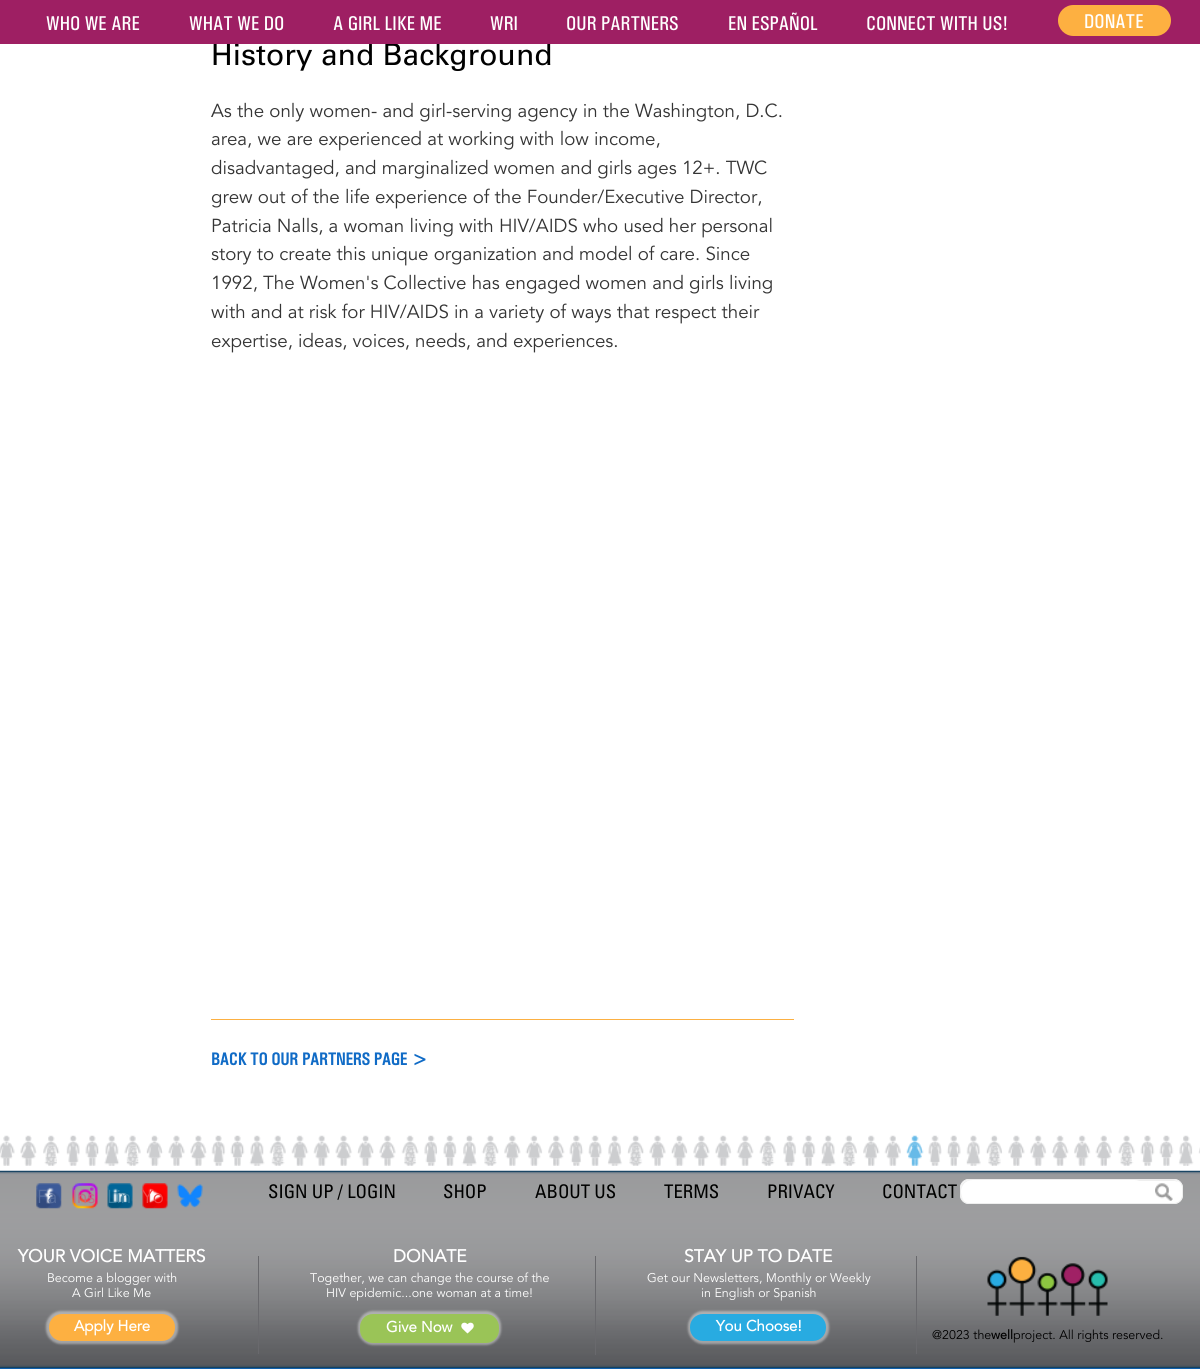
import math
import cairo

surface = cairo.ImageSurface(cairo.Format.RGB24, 1200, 1370)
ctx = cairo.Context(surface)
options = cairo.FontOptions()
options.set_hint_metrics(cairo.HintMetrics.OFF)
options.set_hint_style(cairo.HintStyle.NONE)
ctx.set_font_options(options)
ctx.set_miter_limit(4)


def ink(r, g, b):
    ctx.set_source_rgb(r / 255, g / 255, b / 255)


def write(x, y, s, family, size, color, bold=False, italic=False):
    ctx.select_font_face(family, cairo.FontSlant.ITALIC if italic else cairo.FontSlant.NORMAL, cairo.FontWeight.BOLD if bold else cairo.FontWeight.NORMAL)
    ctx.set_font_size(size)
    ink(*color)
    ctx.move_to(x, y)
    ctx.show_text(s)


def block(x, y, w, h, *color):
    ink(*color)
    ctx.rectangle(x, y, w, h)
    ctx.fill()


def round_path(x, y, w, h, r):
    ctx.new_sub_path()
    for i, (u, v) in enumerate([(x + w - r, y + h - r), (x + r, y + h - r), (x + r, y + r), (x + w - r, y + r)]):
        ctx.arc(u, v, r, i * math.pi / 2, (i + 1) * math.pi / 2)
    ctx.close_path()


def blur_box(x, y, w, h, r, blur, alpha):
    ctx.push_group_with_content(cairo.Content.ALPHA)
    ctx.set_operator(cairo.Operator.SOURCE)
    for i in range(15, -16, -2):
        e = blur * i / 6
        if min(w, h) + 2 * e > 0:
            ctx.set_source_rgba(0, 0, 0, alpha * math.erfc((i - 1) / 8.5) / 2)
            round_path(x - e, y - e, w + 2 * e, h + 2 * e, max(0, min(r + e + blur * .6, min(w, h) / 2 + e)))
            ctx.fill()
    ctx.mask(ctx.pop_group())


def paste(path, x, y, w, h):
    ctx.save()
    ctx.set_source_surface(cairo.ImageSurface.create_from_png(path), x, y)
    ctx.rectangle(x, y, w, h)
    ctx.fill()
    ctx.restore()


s1 = dict(family="Univers", size=30, color=(0, 0, 0))
s2 = dict(family="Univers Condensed", size=20, color=(255, 255, 255))
s3 = dict(family="Avenir", size=18.75, color=(52, 52, 52))
s4 = dict(family="Univers Condensed", size=17.5, color=(16, 107, 198), bold=True)
s5 = dict(family="Avenir", size=18.75, color=(88, 111, 159))
s6 = dict(family="Avenir", size=18.75, color=(189, 109, 135))
s7 = dict(family="Avenir", size=18.75, color=(58, 128, 162))
s8 = dict(family="Avenir", size=18.75, color=(242, 69, 69))
s9 = dict(family="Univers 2", size=18.75, color=(0, 0, 0))
s10 = dict(family="Avenir", size=17.5, color=(255, 255, 255), bold=True)
s11 = dict(family="Avenir", size=12.5, color=(255, 255, 255))
s12 = dict(family="Avenir", size=15, color=(255, 255, 255), bold=True)
s13 = dict(family="Avenir", size=12.5, color=(0, 0, 0))
s14 = dict(family="Avenir", size=12.5, color=(0, 0, 0), bold=True)

ink(255, 255, 255)
ctx.paint()
write(211, 65, "History and Background", **s1)
block(0, 0, 1200, 44, 158, 31, 99)
write(46, 30, "WHO WE ARE", **s2)
write(189, 30, "WHAT WE DO", **s2)
write(333, 30, "A GIRL LIKE ME", **s2)
write(490, 30, "WRI", **s2)
write(566, 30, "OUR PARTNERS", **s2)
write(728, 30, "EN ESPAÑOL", **s2)
write(866, 30, "CONNECT WITH US!", **s2)
ink(253, 176, 65)
round_path(1058, 5, 113, 31, 15.5)
ctx.fill()
write(1084, 28, "DONATE", **s2)
block(211, 1019, 583, 1, 252, 176, 66)
write(211, 117, "As the only women- and girl-serving agency in the Washington, D.C.", **s3)
write(211, 145, "area, we are experienced at working with low income,", **s3)
write(211, 174, "disadvantaged, and marginalized women and girls ages 12+. TWC", **s3)
write(211, 203, "grew out of the life experience of the Founder/Executive Director,", **s3)
write(211, 232, "Patricia Nalls, a woman living with HIV/AIDS who used her personal", **s3)
write(211, 260, "story to create this unique organization and model of care. Since", **s3)
write(211, 289, "1992, The Women's Collective has engaged women and girls living", **s3)
write(211, 318, "with and at risk for HIV/AIDS in a variety of ways that respect their", **s3)
write(211, 347, "expertise, ideas, voices, needs, and experiences.", **s3)
write(211, 1065, "BACK TO OUR PARTNERS PAGE >", **s4)
paste("pic1.png", 0, 1135, 1200, 31)
block(0, 1368, 1200, 1, 16, 107, 198)
paste("pic2.png", 0, 1170, 1200, 199)
paste("pic3.png", 36, 1183, 26, 26)
write(37, 1203, "Fa", **s5)
paste("pic4.png", 72, 1183, 26, 26)
write(72, 1203, "Ins", **s6)
paste("pic5.png", 107, 1183, 26, 26)
write(107, 1203, "Lin", **s7)
paste("pic6.png", 142, 1183, 26, 26)
write(142, 1203, "Yo", **s8)
paste("pic7.png", 177, 1184, 26, 24)
write(268, 1198, "SIGN UP / LOGIN", **s9)
write(443, 1198, "SHOP", **s9)
write(535, 1198, "ABOUT US", **s9)
write(664, 1198, "TERMS", **s9)
write(767, 1198, "PRIVACY", **s9)
write(882, 1198, "CONTACT", **s9)
ink(255, 255, 255)
round_path(960, 1179, 223, 25, 9)
ctx.fill()
ink(239, 239, 239)
ctx.new_path()
ctx.move_to(970, 1181)
ctx.line_to(1175, 1181)
ctx.line_to(1178, 1182)
ctx.curve_to(1177, 1181, 1175, 1180, 1174, 1180)
ctx.line_to(969, 1180)
ctx.line_to(966, 1181)
ctx.curve_to(959, 1183, 959, 1198, 965, 1202)
ctx.curve_to(959, 1197, 961, 1181, 970, 1181)
ctx.close_path()
ctx.fill()
round_path(960.5, 1179.5, 222, 24, 8.5)
ink(238, 238, 238)
ctx.set_line_width(1)
ctx.stroke()
ink(255, 255, 255)
round_path(961, 1180, 185, 23, 11.5)
ctx.fill()
paste("pic8.png", 1155, 1183, 18, 18)
block(258, 1256, 1, 98, 105, 105, 109)
write(18, 1262, "YOUR VOICE MATTERS", **s10)
write(47, 1282, "Become a blogger with", **s11)
write(72, 1297, "A Girl Like Me", **s11)
ink(255, 255, 255)
blur_box(46, 1311, 132, 33, 15, 1, 0.4)
ink(253, 176, 65)
round_path(49, 1314, 126, 27, 13)
ctx.fill()
write(74, 1331, "Apply Here", **s12)
block(595, 1256, 1, 99, 105, 105, 109)
write(393, 1262, "DONATE", **s10)
write(310, 1282, "Together, we can change the course of the", **s11)
write(326, 1297, "HIV epidemic...one woman at a time!", **s11)
ink(255, 255, 255)
blur_box(358, 1311, 143, 34, 15, 1, 0.4)
ink(154, 196, 87)
round_path(360, 1314, 139, 29, 13)
ctx.fill()
write(386, 1332, "Give Now", **s12)
paste("pic9.png", 461, 1322, 13, 12)
block(916, 1256, 1, 98, 105, 105, 109)
write(684, 1262, "STAY UP TO DATE", **s10)
write(647, 1282, "Get our Newsletters, Monthly or Weekly", **s11)
write(701, 1297, "in English or Spanish", **s11)
ink(255, 255, 255)
blur_box(688, 1311, 141, 33, 15, 1, 0.4)
ink(40, 171, 225)
round_path(690, 1314, 136, 27, 13)
ctx.fill()
write(716, 1331, "You Choose!", **s12)
paste("pic10.png", 987, 1256, 121, 60)
write(932, 1339, "@2023 the", **s13)
write(991, 1339, "well", **s14)
write(1013, 1339, "project. All rights reserved.", **s13)
surface.write_to_png("screenshot.png")
